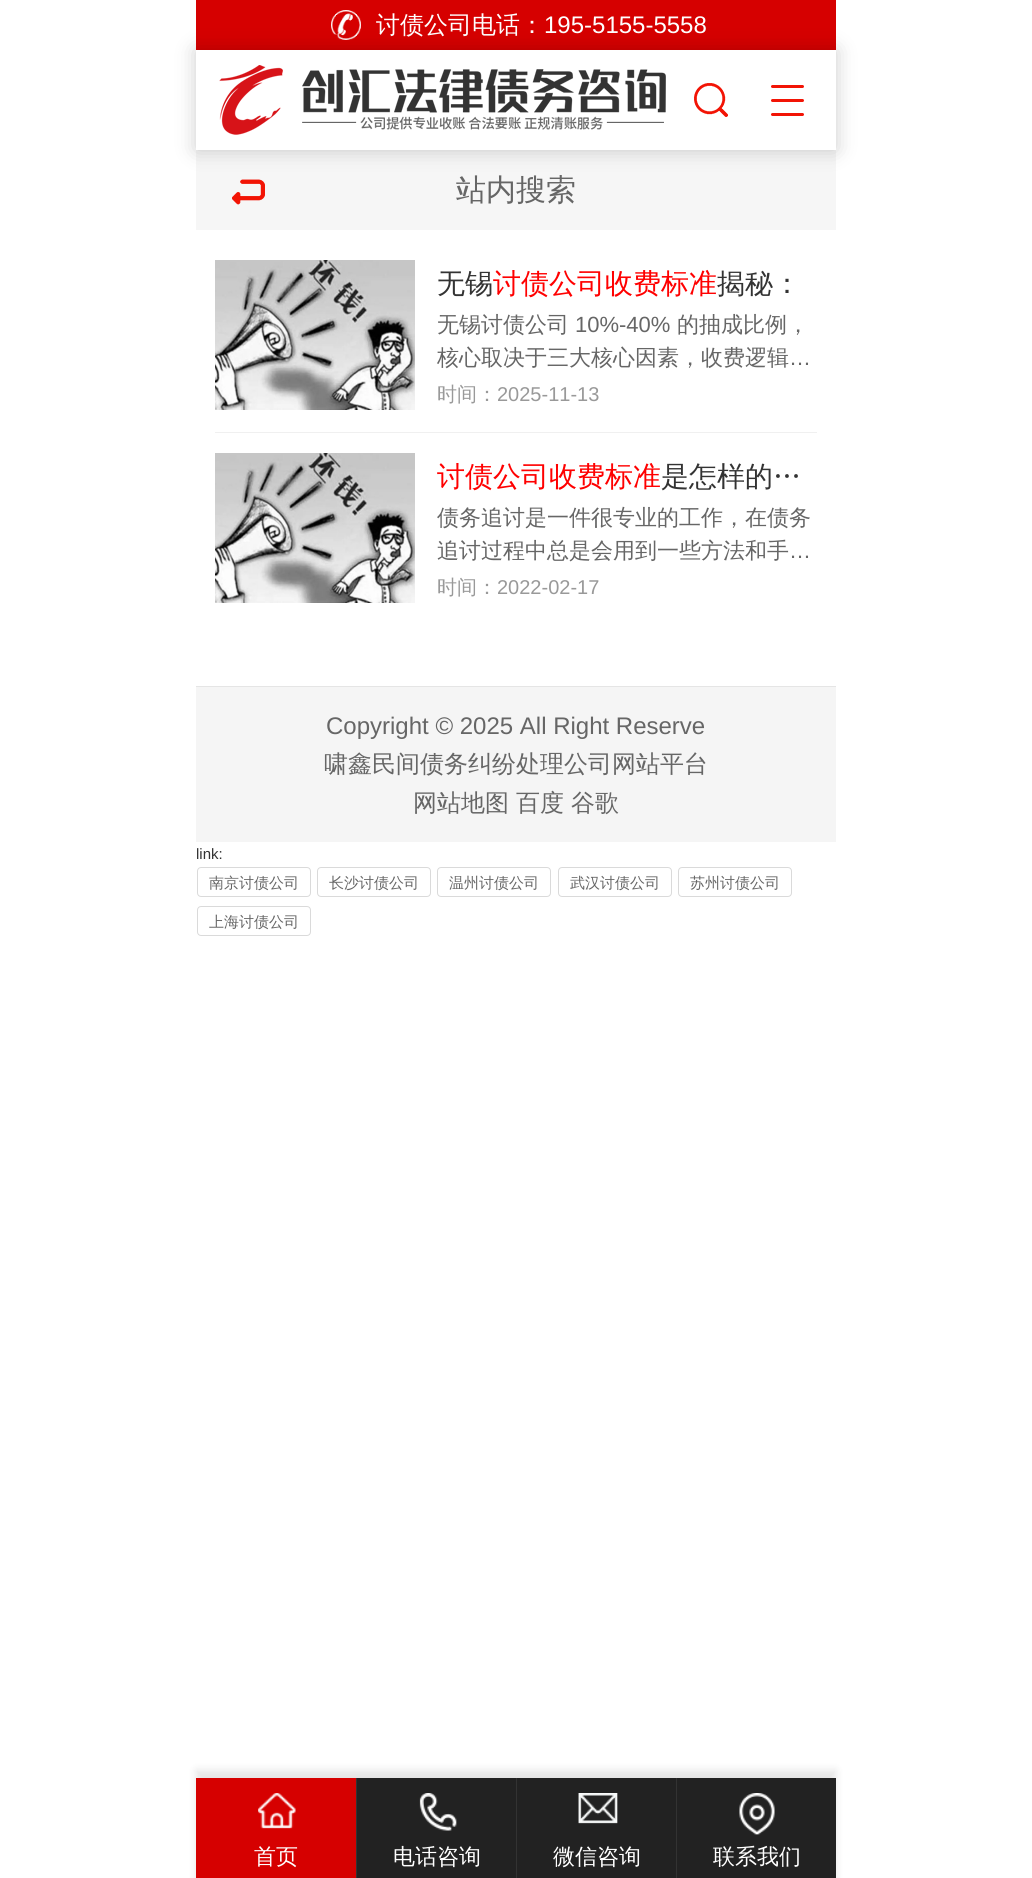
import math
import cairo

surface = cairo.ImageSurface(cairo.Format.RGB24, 1032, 1878)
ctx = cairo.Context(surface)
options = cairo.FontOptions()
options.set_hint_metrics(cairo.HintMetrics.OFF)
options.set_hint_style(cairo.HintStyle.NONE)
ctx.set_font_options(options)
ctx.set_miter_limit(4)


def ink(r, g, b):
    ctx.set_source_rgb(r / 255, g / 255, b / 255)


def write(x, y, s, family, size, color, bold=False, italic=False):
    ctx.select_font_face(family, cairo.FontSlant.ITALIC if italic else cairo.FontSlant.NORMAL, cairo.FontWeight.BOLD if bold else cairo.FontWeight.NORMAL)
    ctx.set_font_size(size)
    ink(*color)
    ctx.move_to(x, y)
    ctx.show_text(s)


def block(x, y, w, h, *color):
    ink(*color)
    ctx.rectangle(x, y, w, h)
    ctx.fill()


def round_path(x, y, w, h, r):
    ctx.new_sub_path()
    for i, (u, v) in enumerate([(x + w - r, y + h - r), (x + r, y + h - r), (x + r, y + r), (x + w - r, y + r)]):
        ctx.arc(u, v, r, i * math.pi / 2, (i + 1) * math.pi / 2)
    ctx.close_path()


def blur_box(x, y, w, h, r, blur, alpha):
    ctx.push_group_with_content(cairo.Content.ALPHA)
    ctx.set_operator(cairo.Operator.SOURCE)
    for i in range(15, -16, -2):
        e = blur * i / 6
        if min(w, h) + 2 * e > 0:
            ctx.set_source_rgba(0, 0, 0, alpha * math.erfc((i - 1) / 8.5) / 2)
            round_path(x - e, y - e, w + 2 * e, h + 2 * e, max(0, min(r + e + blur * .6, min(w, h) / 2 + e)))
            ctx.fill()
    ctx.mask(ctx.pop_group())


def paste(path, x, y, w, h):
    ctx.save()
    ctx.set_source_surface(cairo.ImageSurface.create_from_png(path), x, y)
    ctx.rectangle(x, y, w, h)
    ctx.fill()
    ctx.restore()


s1 = dict(family="WenQuanYi Zen Hei Medium", size=24, color=(255, 255, 255))
s2 = dict(family="Liberation Sans", size=24, color=(255, 255, 255))
s3 = dict(family="WenQuanYi Zen Hei Medium", size=30, color=(102, 102, 102))
s4 = dict(family="WenQuanYi Zen Hei Medium", size=28, color=(51, 51, 51))
s5 = dict(family="WenQuanYi Zen Hei Medium", size=28, color=(255, 0, 0))
s6 = dict(family="WenQuanYi Zen Hei Medium", size=22, color=(102, 102, 102))
s7 = dict(family="Liberation Sans", size=22, color=(102, 102, 102))
s8 = dict(family="WenQuanYi Zen Hei Medium", size=20, color=(153, 153, 153))
s9 = dict(family="Liberation Sans", size=20, color=(153, 153, 153))
s10 = dict(family="Liberation Sans", size=24, color=(102, 102, 102))
s11 = dict(family="WenQuanYi Zen Hei Medium", size=24, color=(102, 102, 102))
s12 = dict(family="Liberation Sans", size=15, color=(51, 51, 51))
s13 = dict(family="WenQuanYi Zen Hei Medium", size=15, color=(102, 102, 102))
s14 = dict(family="WenQuanYi Zen Hei Medium", size=22, color=(255, 255, 255))

ink(255, 255, 255)
ctx.paint()
block(196, 0, 640, 50, 214, 0, 0)
paste("pic1.png", 331, 10, 30, 30)
write(376, 33, "讨债公司电话：", **s1)
write(544, 33, "195-5155-5558", **s2)
block(196, 150, 640, 80, 246, 246, 246)
paste("pic5.png", 232, 179, 33, 26)
ctx.save()
ctx.set_fill_rule(cairo.FillRule.EVEN_ODD)
ctx.new_path()
ctx.move_to(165, 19)
ctx.line_to(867, 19)
ctx.line_to(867, 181)
ctx.line_to(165, 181)
ctx.close_path()
ctx.move_to(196, 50)
ctx.line_to(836, 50)
ctx.line_to(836, 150)
ctx.line_to(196, 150)
ctx.close_path()
ctx.clip()
ink(0, 0, 0)
blur_box(196, 50, 640, 100, 0, 10, 0.2)
ctx.restore()
paste("pic2.png", 219, 65, 447, 70)
paste("pic3.png", 694, 83, 34, 34)
paste("pic4.png", 771, 85, 33, 31)
write(456, 200, "站内搜索", **s3)
block(215, 432, 602, 1, 240, 240, 240)
paste("pic6.png", 215, 260, 200, 150)
write(437, 293, "无锡", **s4)
write(493, 293, "讨债公司收费标准", **s5)
write(717, 293, "揭秘：", **s4)
write(437, 332, "无锡讨债公司", **s6)
write(575, 332, "10%-40%", **s7)
write(677, 332, "的抽成比例，", **s6)
write(437, 365, "核心取决于三大核心因素，收费逻辑", **s6)
write(789, 365, "…", **s7)
write(437, 401, "时间：", **s8)
write(497, 401, "2025-11-13", **s9)
paste("pic6.png", 215, 453, 200, 150)
write(437, 486, "讨债公司收费标准", **s5)
write(661, 486, "是怎样的…", **s4)
write(437, 525, "债务追讨是一件很专业的工作，在债务", **s6)
write(437, 558, "追讨过程中总是会用到一些方法和手", **s6)
write(789, 558, "…", **s7)
write(437, 594, "时间：", **s8)
write(497, 594, "2022-02-17", **s9)
block(196, 687, 640, 155, 245, 245, 245)
block(196, 686, 640, 1, 229, 229, 229)
write(326, 734, "Copyright © 2025 All Right Reserve", **s10)
write(324, 772, "啸鑫民间债务纠纷处理公司网站平台", **s11)
write(413, 811, "网站地图", **s11)
write(516, 811, "百度", **s11)
write(571, 811, "谷歌", **s11)
write(196, 859, "link:", **s12)
round_path(197.5, 867.5, 113, 29, 3.5)
ink(218, 218, 218)
ctx.set_line_width(1)
ctx.stroke()
write(209, 888, "南京讨债公司", **s13)
round_path(317.5, 867.5, 113, 29, 3.5)
ink(218, 218, 218)
ctx.stroke()
write(329, 888, "长沙讨债公司", **s13)
round_path(437.5, 867.5, 113, 29, 3.5)
ink(218, 218, 218)
ctx.stroke()
write(449, 888, "温州讨债公司", **s13)
round_path(558.5, 867.5, 113, 29, 3.5)
ink(218, 218, 218)
ctx.stroke()
write(570, 888, "武汉讨债公司", **s13)
round_path(678.5, 867.5, 113, 29, 3.5)
ink(218, 218, 218)
ctx.stroke()
write(690, 888, "苏州讨债公司", **s13)
round_path(197.5, 906.5, 113, 29, 3.5)
ink(218, 218, 218)
ctx.stroke()
write(209, 927, "上海讨债公司", **s13)
ink(0, 0, 0)
blur_box(196, 1770, 640, 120, 0, 4, 0.1)
block(357, 1778, 479, 100, 34, 34, 34)
block(196, 1778, 160, 100, 214, 0, 0)
paste("pic7.png", 258, 1793, 38, 36)
write(254, 1864, "首页", **s14)
block(356, 1778, 1, 100, 51, 51, 51)
paste("pic8.png", 419, 1793, 38, 38)
write(393, 1864, "电话咨询", **s14)
block(516, 1778, 1, 100, 51, 51, 51)
paste("pic9.png", 578, 1793, 40, 31)
write(553, 1864, "微信咨询", **s14)
block(676, 1778, 1, 100, 51, 51, 51)
paste("pic10.png", 739, 1793, 36, 42)
write(713, 1864, "联系我们", **s14)
surface.write_to_png("screenshot.png")
